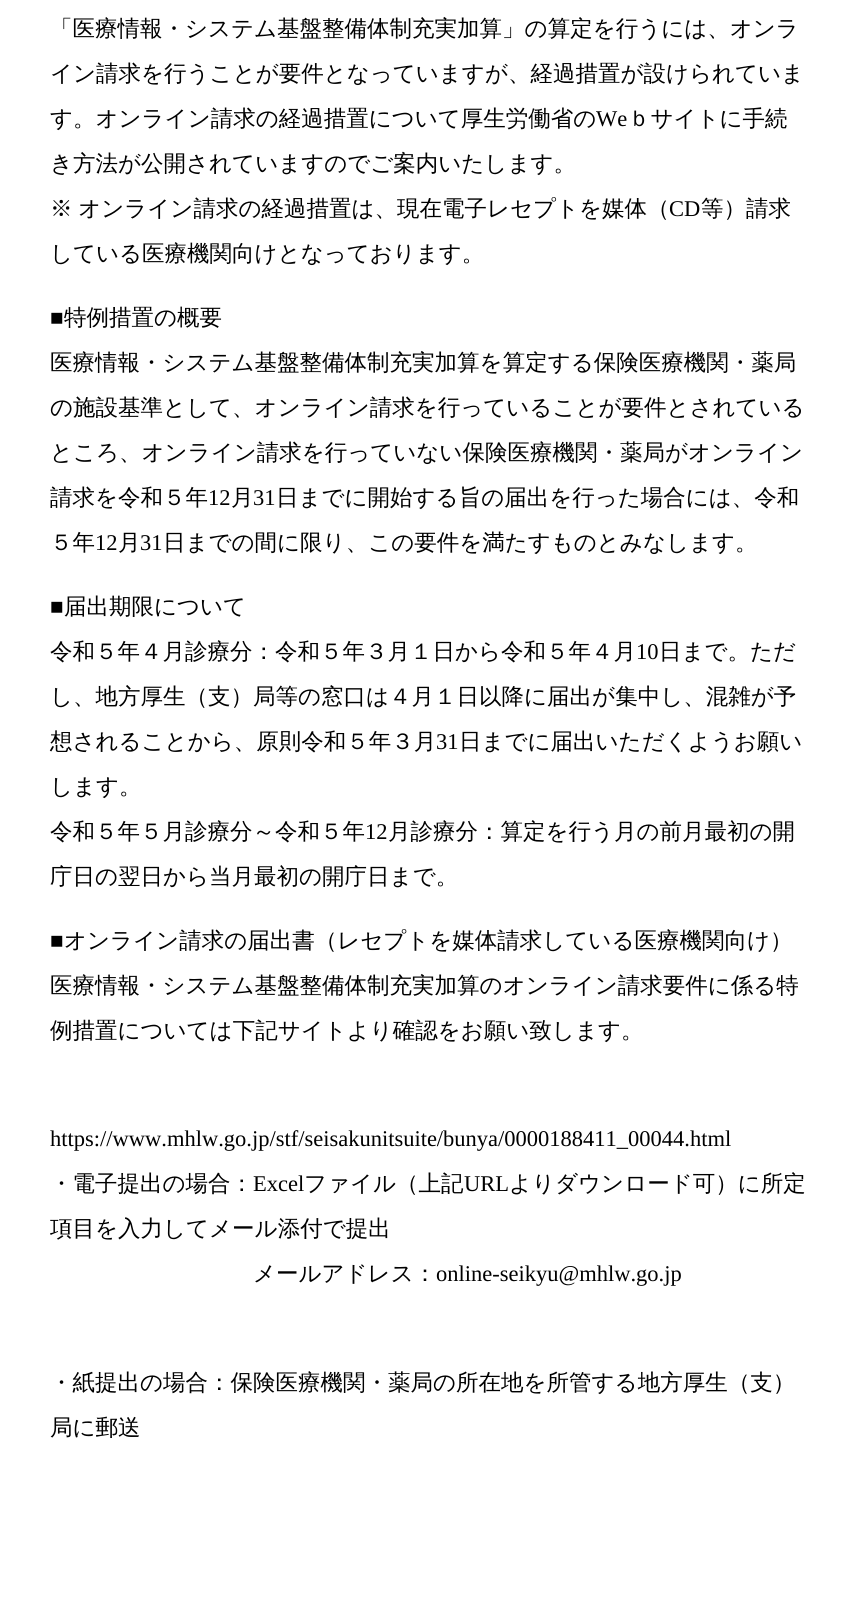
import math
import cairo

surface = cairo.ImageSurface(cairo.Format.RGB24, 857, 1608)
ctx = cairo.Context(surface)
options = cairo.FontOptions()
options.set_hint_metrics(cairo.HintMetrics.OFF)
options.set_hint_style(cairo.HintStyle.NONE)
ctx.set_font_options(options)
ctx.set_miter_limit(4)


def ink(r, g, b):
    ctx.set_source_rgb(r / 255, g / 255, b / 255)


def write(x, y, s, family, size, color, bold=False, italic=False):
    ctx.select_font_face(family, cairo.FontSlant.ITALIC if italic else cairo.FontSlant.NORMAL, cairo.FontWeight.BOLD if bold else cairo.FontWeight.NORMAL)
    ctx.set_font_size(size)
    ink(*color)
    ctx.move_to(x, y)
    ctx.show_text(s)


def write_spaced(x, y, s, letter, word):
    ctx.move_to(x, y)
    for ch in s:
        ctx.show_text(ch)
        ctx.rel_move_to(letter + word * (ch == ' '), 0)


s1 = dict(family="WenQuanYi Zen Hei Medium", size=22.5, color=(0, 0, 0))
s2 = dict(family="Liberation Serif", size=22.5, color=(0, 0, 0))

ink(255, 255, 255)
ctx.paint()
write(50, 36, "「医療情報・システム基盤整備体制充実加算」の算定を行うには、オンラ", **s1)
write(50, 81, "イン請求を行うことが要件となっていますが、経過措置が設けられていま", **s1)
write(50, 126, "す。オンライン請求の経過措置について厚生労働省の", **s1)
write(596, 126, "We", **s2)
write(628, 126, "ｂサイトに手続", **s1)
write(50, 171, "き方法が公開されていますのでご案内いたします。", **s1)
write_spaced(50, 216, "※ オンライン請求の経過措置は、現在電子レセプトを媒体（", 0, -1)
write(669, 216, "CD", **s2)
write(701, 216, "等）請求", **s1)
write(50, 261, "している医療機関向けとなっております。", **s1)
write(50, 325, "■", **s2)
write(64, 325, "特例措置の概要", **s1)
write(50, 370, "医療情報・システム基盤整備体制充実加算を算定する保険医療機関・薬局", **s1)
write(50, 415, "の施設基準として、オンライン請求を行っていることが要件とされている", **s1)
write(50, 460, "ところ、オンライン請求を行っていない保険医療機関・薬局がオンライン", **s1)
write(50, 505, "請求を令和５年", **s1)
write(208, 505, "12", **s2)
write(231, 505, "月", **s1)
write(253, 505, "31", **s2)
write(276, 505, "日までに開始する旨の届出を行った場合には、令和", **s1)
write(50, 550, "５年", **s1)
write(95, 550, "12", **s2)
write(118, 550, "月", **s1)
write(140, 550, "31", **s2)
write(163, 550, "日までの間に限り、この要件を満たすものとみなします。", **s1)
write(50, 614, "■", **s2)
write(64, 614, "届出期限について", **s1)
write(50, 659, "令和５年４月診療分：令和５年３月１日から令和５年４月", **s1)
write(636, 659, "10", **s2)
write(659, 659, "日まで。ただ", **s1)
write(50, 704, "し、地方厚生（支）局等の窓口は４月１日以降に届出が集中し、混雑が予", **s1)
write(50, 749, "想されることから、原則令和５年３月", **s1)
write(436, 749, "31", **s2)
write(459, 749, "日までに届出いただくようお願い", **s1)
write(50, 794, "します。", **s1)
write(50, 839, "令和５年５月診療分～令和５年", **s1)
write(365, 839, "12", **s2)
write(388, 839, "月診療分：算定を行う月の前月最初の開", **s1)
write(50, 884, "庁日の翌日から当月最初の開庁日まで。", **s1)
write(50, 948, "■", **s2)
write(64, 948, "オンライン請求の届出書（レセプトを媒体請求している医療機関向け）", **s1)
write(50, 993, "医療情報・システム基盤整備体制充実加算のオンライン請求要件に係る特", **s1)
write(50, 1038, "例措置については下記サイトより確認をお願い致します。", **s1)
write(50, 1146, "https://www.mhlw.go.jp/stf/seisakunitsuite/bunya/0000188411_00044.html", **s2)
write(50, 1191, "・電子提出の場合：", **s1)
write(253, 1191, "Excel", **s2)
write(304, 1191, "ファイル（上記", **s1)
write(464, 1191, "URL", **s2)
write(509, 1191, "よりダウンロード可）に所定", **s1)
write(50, 1236, "項目を入力してメール添付で提出", **s1)
write(253, 1281, "メールアドレス：", **s1)
write(436, 1281, "online-seikyu@mhlw.go.jp", **s2)
write(50, 1390, "・紙提出の場合：保険医療機関・薬局の所在地を所管する地方厚生（支）", **s1)
write(50, 1435, "局に郵送", **s1)
surface.write_to_png("screenshot.png")
